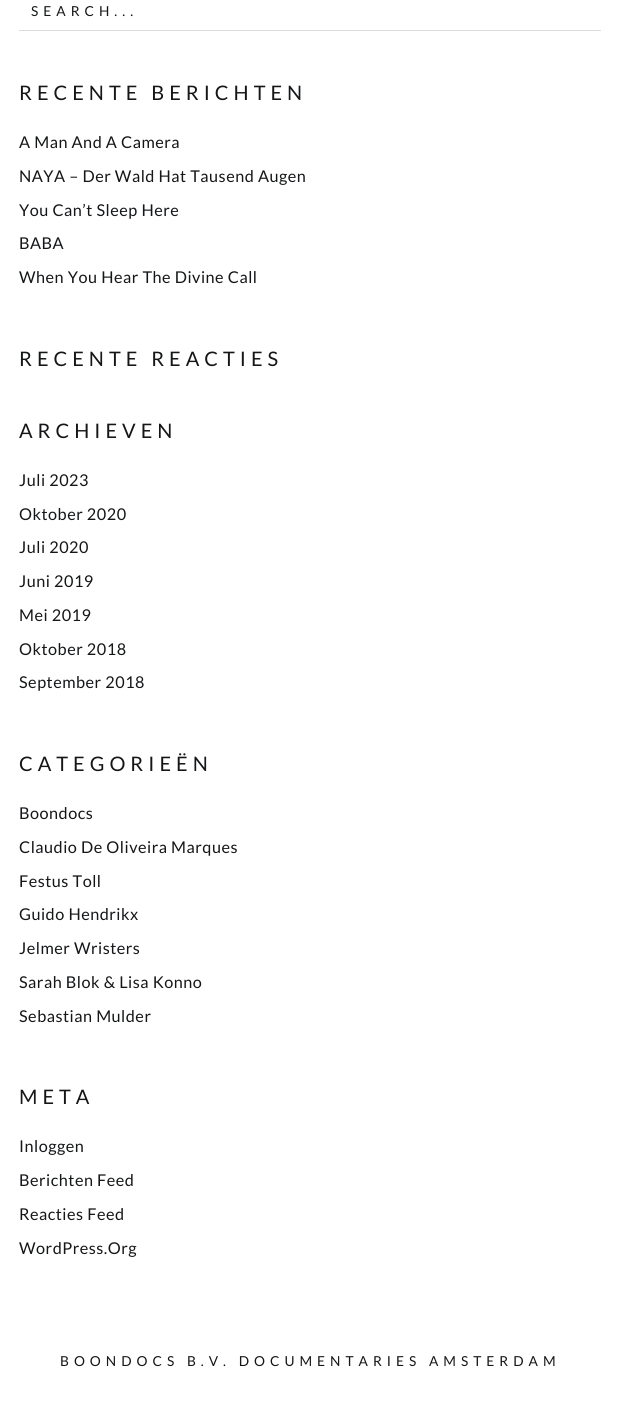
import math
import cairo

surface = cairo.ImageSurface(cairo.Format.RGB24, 619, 1417)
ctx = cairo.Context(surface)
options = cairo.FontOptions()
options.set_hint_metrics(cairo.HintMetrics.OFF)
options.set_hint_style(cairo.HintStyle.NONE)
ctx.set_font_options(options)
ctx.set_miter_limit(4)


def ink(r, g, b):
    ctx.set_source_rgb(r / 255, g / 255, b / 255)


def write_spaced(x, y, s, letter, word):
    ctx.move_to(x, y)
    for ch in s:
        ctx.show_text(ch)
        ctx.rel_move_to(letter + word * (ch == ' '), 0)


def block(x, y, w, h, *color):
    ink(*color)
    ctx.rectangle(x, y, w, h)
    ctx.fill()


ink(255, 255, 255)
ctx.paint()
block(19, 30, 582, 1, 221, 221, 221)
ctx.select_font_face("Lato")
ctx.set_font_size(13.75)
ink(20, 22, 24)
write_spaced(31, 16, "SEARCH...", 5, 0)
ctx.set_font_size(20)
write_spaced(19, 100, "RECENTE BERICHTEN", 5, 0)
ctx.set_font_size(16.25)
write_spaced(19, 148, "A Man And A Camera", 0.5, 0)
write_spaced(19, 182, "NAYA – Der Wald Hat Tausend Augen", 0.5, 0)
write_spaced(19, 216, "You Can’t Sleep Here", 0.5, 0)
write_spaced(19, 249, "BABA", 0.5, 0)
write_spaced(19, 283, "When You Hear The Divine Call", 0.5, 0)
ctx.set_font_size(20)
write_spaced(19, 366, "RECENTE REACTIES", 5, 0)
write_spaced(19, 438, "ARCHIEVEN", 5, 0)
ctx.set_font_size(16.25)
write_spaced(19, 486, "Juli 2023", 0.5, 0)
write_spaced(19, 520, "Oktober 2020", 0.5, 0)
write_spaced(19, 553, "Juli 2020", 0.5, 0)
write_spaced(19, 587, "Juni 2019", 0.5, 0)
write_spaced(19, 621, "Mei 2019", 0.5, 0)
write_spaced(19, 655, "Oktober 2018", 0.5, 0)
write_spaced(19, 688, "September 2018", 0.5, 0)
ctx.set_font_size(20)
write_spaced(19, 771, "CATEGORIEËN", 5, 0)
ctx.set_font_size(16.25)
write_spaced(19, 819, "Boondocs", 0.5, 0)
write_spaced(19, 853, "Claudio De Oliveira Marques", 0.5, 0)
write_spaced(19, 887, "Festus Toll", 0.5, 0)
write_spaced(19, 920, "Guido Hendrikx", 0.5, 0)
write_spaced(19, 954, "Jelmer Wristers", 0.5, 0)
write_spaced(19, 988, "Sarah Blok & Lisa Konno", 0.5, 0)
write_spaced(19, 1022, "Sebastian Mulder", 0.5, 0)
ctx.set_font_size(20)
write_spaced(19, 1104, "META", 5, 0)
ctx.set_font_size(16.25)
write_spaced(19, 1152, "Inloggen", 0.5, 0)
write_spaced(19, 1186, "Berichten Feed", 0.5, 0)
write_spaced(19, 1220, "Reacties Feed", 0.5, 0)
write_spaced(19, 1254, "WordPress.Org", 0.5, 0)
ctx.set_font_size(13.75)
write_spaced(60, 1366, "BOONDOCS B.V. DOCUMENTARIES AMSTERDAM", 5, 0)
surface.write_to_png("screenshot.png")
